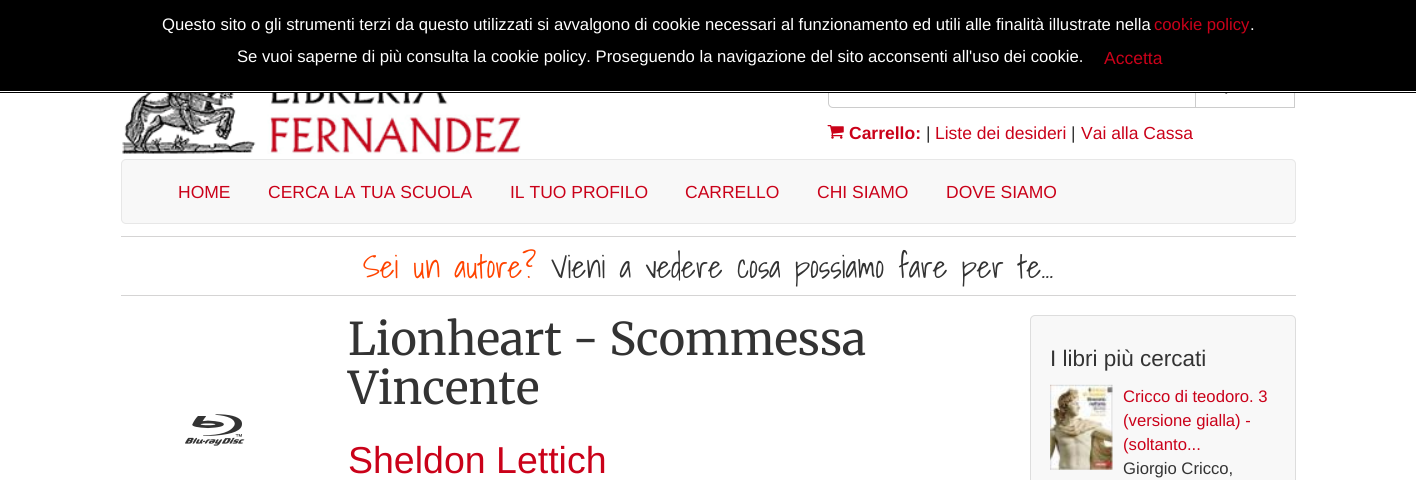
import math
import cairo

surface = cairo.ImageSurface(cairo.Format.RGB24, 1416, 480)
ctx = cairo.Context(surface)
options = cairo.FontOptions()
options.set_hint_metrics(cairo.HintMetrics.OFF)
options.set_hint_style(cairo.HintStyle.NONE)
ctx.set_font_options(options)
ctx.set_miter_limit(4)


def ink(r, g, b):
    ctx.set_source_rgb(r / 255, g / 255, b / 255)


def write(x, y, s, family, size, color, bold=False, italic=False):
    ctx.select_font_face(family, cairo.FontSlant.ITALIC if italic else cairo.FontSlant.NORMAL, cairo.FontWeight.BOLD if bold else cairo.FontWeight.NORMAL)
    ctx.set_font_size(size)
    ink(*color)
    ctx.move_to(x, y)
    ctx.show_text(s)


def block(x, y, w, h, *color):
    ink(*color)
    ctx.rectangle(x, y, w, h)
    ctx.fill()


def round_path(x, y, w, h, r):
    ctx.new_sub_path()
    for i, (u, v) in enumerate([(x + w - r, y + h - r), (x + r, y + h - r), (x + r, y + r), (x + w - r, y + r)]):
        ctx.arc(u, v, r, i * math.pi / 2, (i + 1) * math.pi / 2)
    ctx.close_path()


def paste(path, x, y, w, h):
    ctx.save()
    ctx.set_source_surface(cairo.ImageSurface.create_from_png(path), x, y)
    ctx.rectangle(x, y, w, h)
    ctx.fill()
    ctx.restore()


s1 = dict(family="Liberation Sans", size=16.67, color=(255, 255, 255))
s2 = dict(family="Liberation Sans", size=16.67, color=(202, 1, 25))
s3 = dict(family="Liberation Sans", size=17.5, color=(202, 1, 25))
s4 = dict(family="Liberation Sans", size=17.5, color=(202, 1, 25), bold=True)
s5 = dict(family="Liberation Sans", size=17.5, color=(51, 51, 51))
s6 = dict(family="Shadows Into Light Light", size=31.5, color=(255, 68, 0))
s7 = dict(family="Shadows Into Light Light", size=31.5, color=(51, 51, 51))
s8 = dict(family="Merriweather", size=45, color=(51, 51, 51))
s9 = dict(family="Liberation Sans", size=37.5, color=(202, 1, 25))
s10 = dict(family="Liberation Sans", size=22.5, color=(51, 51, 51))
s11 = dict(family="Liberation Sans", size=16.67, color=(51, 51, 51))

ink(255, 255, 255)
ctx.paint()
ctx.new_path()
ctx.move_to(833, 65.5)
ctx.line_to(1195.5, 65.5)
ctx.line_to(1195.5, 107.5)
ctx.line_to(833, 107.5)
ctx.curve_to(830.5, 107.5, 828.5, 105.5, 828.5, 103)
ctx.line_to(828.5, 70)
ctx.curve_to(828.5, 67.5, 830.5, 65.5, 833, 65.5)
ctx.close_path()
ink(204, 204, 204)
ctx.set_line_width(1)
ctx.stroke()
ctx.rectangle(1195.5, 65.5, 99, 42)
ctx.stroke()
block(0, 0, 1416, 93, 0, 0, 0)
block(0, 91, 1416, 1, 255, 255, 255)
write(162, 30, "Questo sito o gli strumenti terzi da questo utilizzati si avvalgono di cookie necessari al funzionamento ed utili alle finalità illustrate nella", **s1)
write(1154, 30, "cookie policy", **s2)
write(1250, 30, ".", **s1)
write(237, 62, "Se vuoi saperne di più consulta la cookie policy. Proseguendo la navigazione del sito acconsenti all'uso dei cookie.", **s1)
write(1104, 64, "Accetta", **s3)
paste("pic1.png", 122, 93, 399, 61)
paste("pic2.png", 1225, 93, 3, 1)
paste("pic3.png", 827, 125, 17, 14)
write(849, 139, "Carrello:", **s4)
write(926, 139, "|", **s5)
write(935, 139, "Liste dei desideri", **s3)
write(1071, 139, "|", **s5)
write(1081, 139, "Vai alla Cassa", **s3)
ink(248, 248, 248)
round_path(121.5, 159.5, 1174, 64, 4.5)
ctx.fill_preserve()
ink(231, 231, 231)
ctx.stroke()
write(178, 198, "HOME", **s3)
write(268, 198, "CERCA LA TUA SCUOLA", **s3)
write(510, 198, "IL TUO PROFILO", **s3)
write(685, 198, "CARRELLO", **s3)
write(817, 198, "CHI SIAMO", **s3)
write(946, 198, "DOVE SIAMO", **s3)
block(121, 236, 1175, 1, 213, 212, 212)
block(121, 295, 1175, 1, 213, 212, 212)
write(363, 278, "Sei un autore?", **s6)
write(551, 278, "Vieni a vedere cosa possiamo fare per te...", **s7)
paste("pic4.png", 185, 414, 60, 32)
write(348, 355, "Lionheart - Scommessa", **s8)
write(348, 404, "Vincente", **s8)
write(348, 473, "Sheldon Lettich", **s9)
ink(248, 248, 248)
round_path(1030.5, 315.5, 265, 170, 4.5)
ctx.fill_preserve()
ink(221, 221, 221)
ctx.stroke()
write(1050, 366, "I libri più cercati", **s10)
paste("pic5.png", 1050, 384, 63, 86)
write(1123, 402, "Cricco di teodoro. 3", **s2)
write(1123, 426, "(versione gialla) -", **s2)
write(1123, 450, "(soltanto...", **s2)
write(1123, 474, "Giorgio Cricco,", **s11)
surface.write_to_png("screenshot.png")
